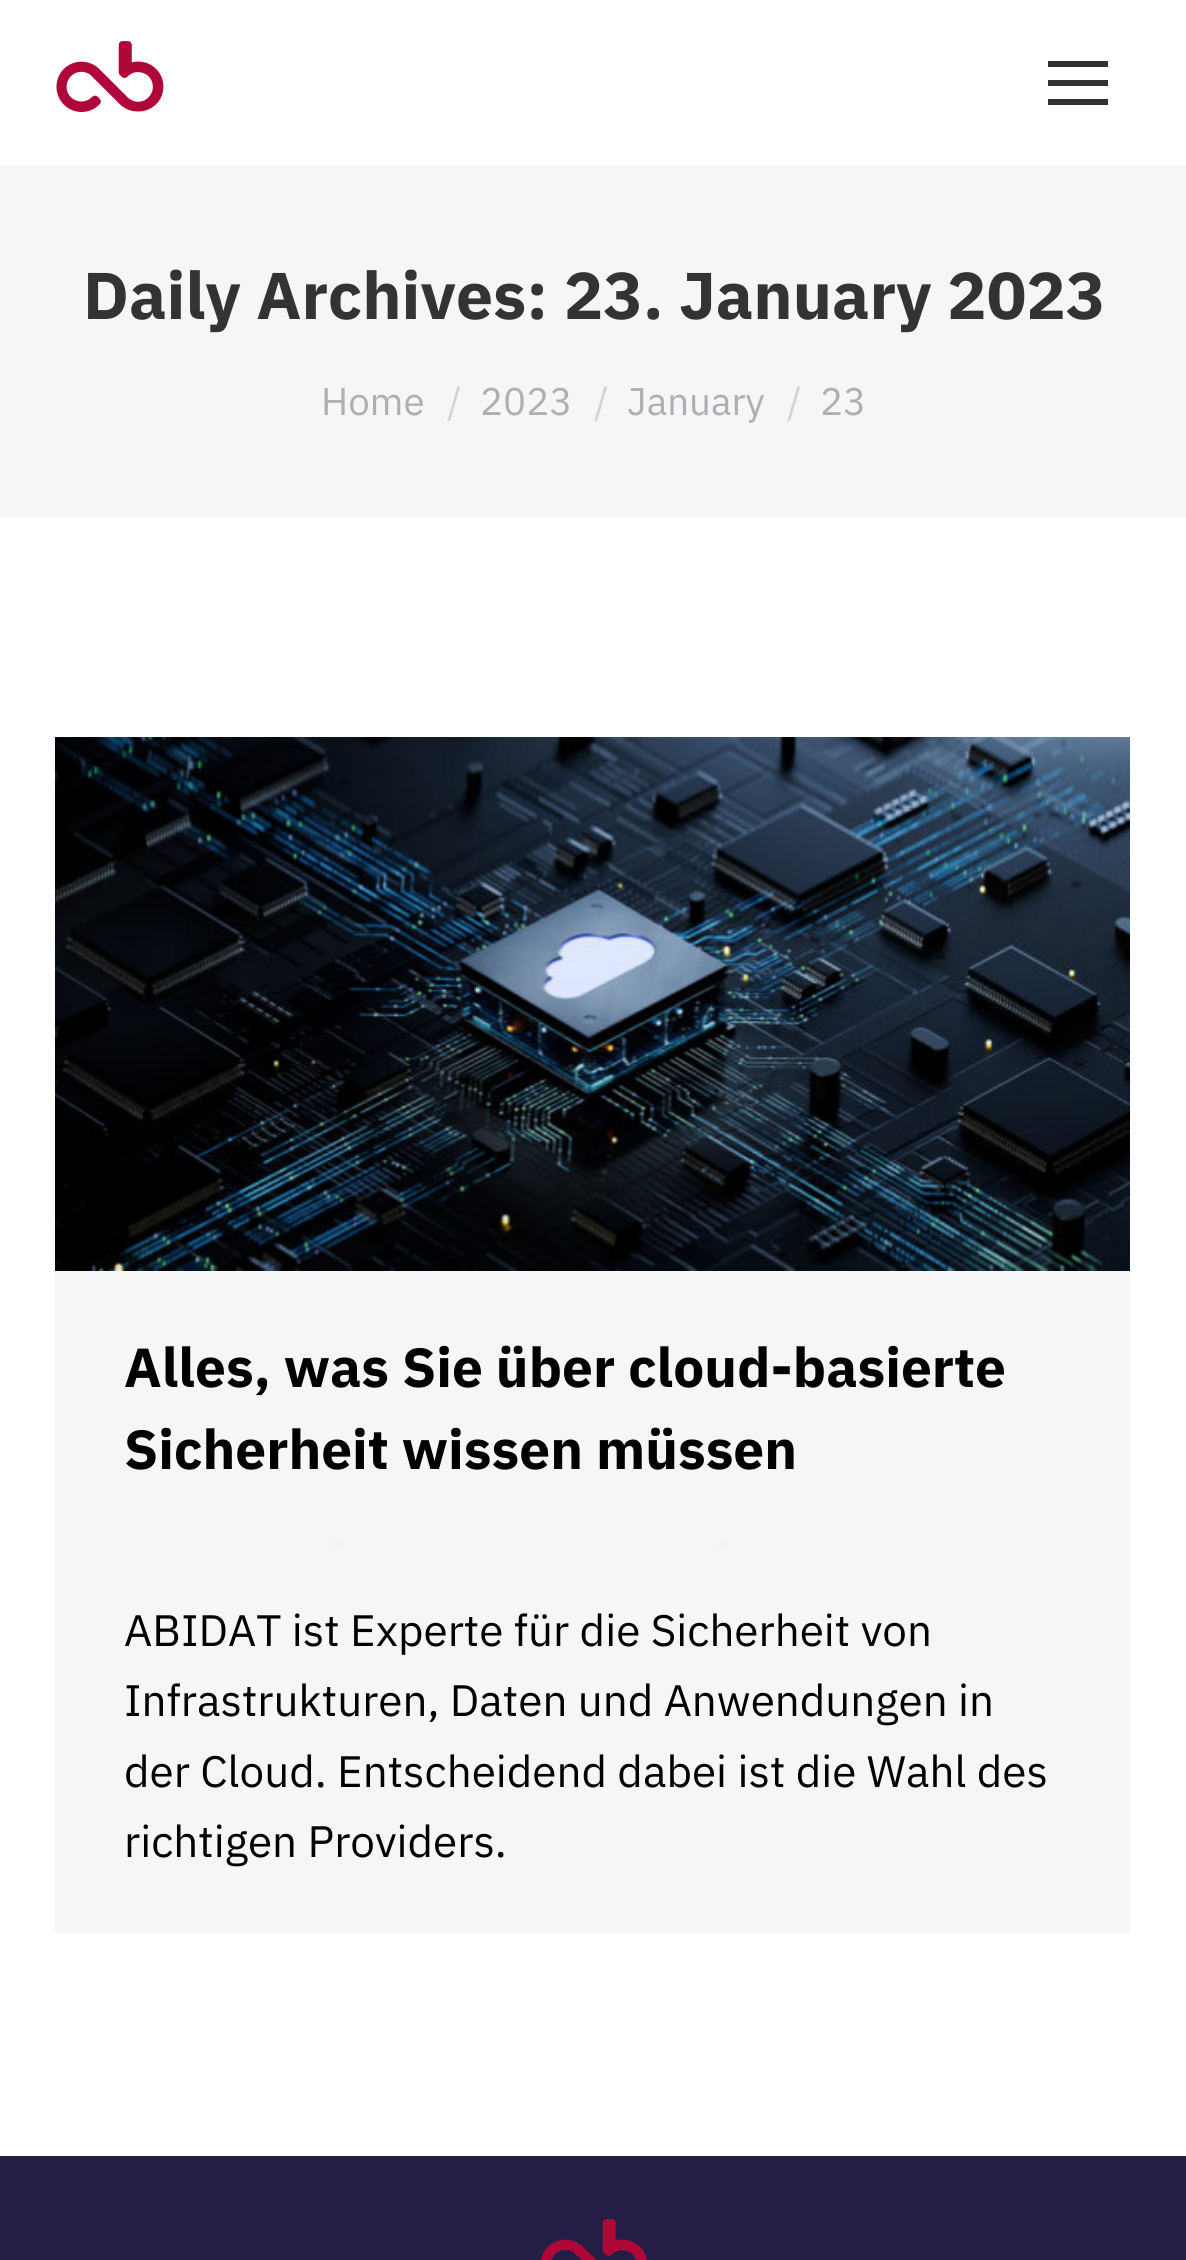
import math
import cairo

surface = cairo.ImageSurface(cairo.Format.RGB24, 1186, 2260)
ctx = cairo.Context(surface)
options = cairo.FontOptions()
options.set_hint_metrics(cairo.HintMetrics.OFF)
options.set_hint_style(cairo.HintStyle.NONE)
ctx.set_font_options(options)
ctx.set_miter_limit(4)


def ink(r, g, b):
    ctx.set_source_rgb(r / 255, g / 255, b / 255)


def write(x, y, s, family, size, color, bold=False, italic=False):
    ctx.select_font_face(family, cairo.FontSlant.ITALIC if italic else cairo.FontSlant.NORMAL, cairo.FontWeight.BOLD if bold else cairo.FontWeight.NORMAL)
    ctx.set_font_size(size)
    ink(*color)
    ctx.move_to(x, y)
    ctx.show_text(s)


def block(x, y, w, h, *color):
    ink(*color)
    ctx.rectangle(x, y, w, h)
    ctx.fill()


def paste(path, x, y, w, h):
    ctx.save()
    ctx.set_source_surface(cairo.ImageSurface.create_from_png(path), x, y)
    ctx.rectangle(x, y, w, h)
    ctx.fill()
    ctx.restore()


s1 = dict(family="IBM Plex Sans", size=66, color=(51, 51, 51), bold=True)
s2 = dict(family="IBM Plex Sans", size=38.5, color=(173, 175, 179))
s3 = dict(family="IBM Plex Sans", size=38.5, color=(210, 211, 213))
s4 = dict(family="IBM Plex Sans", size=55, color=(0, 0, 0), bold=True)
s5 = dict(family="IBM Plex Sans", size=44, color=(0, 0, 0))

ink(36, 30, 70)
ctx.paint()
block(0, 0, 1186, 165, 255, 255, 255)
paste("pic1.png", 56, 41, 108, 71)
block(1048, 61, 60, 6, 51, 51, 51)
block(1048, 80, 60, 6, 51, 51, 51)
block(1048, 99, 60, 6, 51, 51, 51)
block(0, 165, 1186, 352, 246, 246, 246)
write(83, 319, "Daily Archives: 23. January 2023", **s1)
write(321, 415, "Home", **s2)
write(447, 415, "/", **s3)
write(480, 415, "2023", **s2)
write(594, 415, "/", **s3)
write(627, 415, "January", **s2)
write(787, 415, "/", **s3)
write(820, 415, "23", **s2)
block(0, 517, 1186, 1639, 255, 255, 255)
block(55, 1271, 1075, 662, 246, 246, 246)
paste("pic2.png", 55, 737, 1075, 534)
write(124, 1387, "Alles, was Sie über cloud-basierte", **s4)
write(124, 1469, "Sicherheit wissen müssen", **s4)
ink(242, 242, 242)
ctx.new_path()
ctx.arc(337, 1544, 4, 0, 2 * math.pi)
ctx.fill()
ctx.arc(722, 1544, 4, 0, 2 * math.pi)
ctx.fill()
write(124, 1646, "ABIDAT ist Experte für die Sicherheit von", **s5)
write(124, 1716, "Infrastrukturen, Daten und Anwendungen in", **s5)
write(124, 1787, "der Cloud. Entscheidend dabei ist die Wahl des", **s5)
write(124, 1857, "richtigen Providers.", **s5)
paste("pic3.png", 541, 2219, 106, 41)
surface.write_to_png("screenshot.png")
